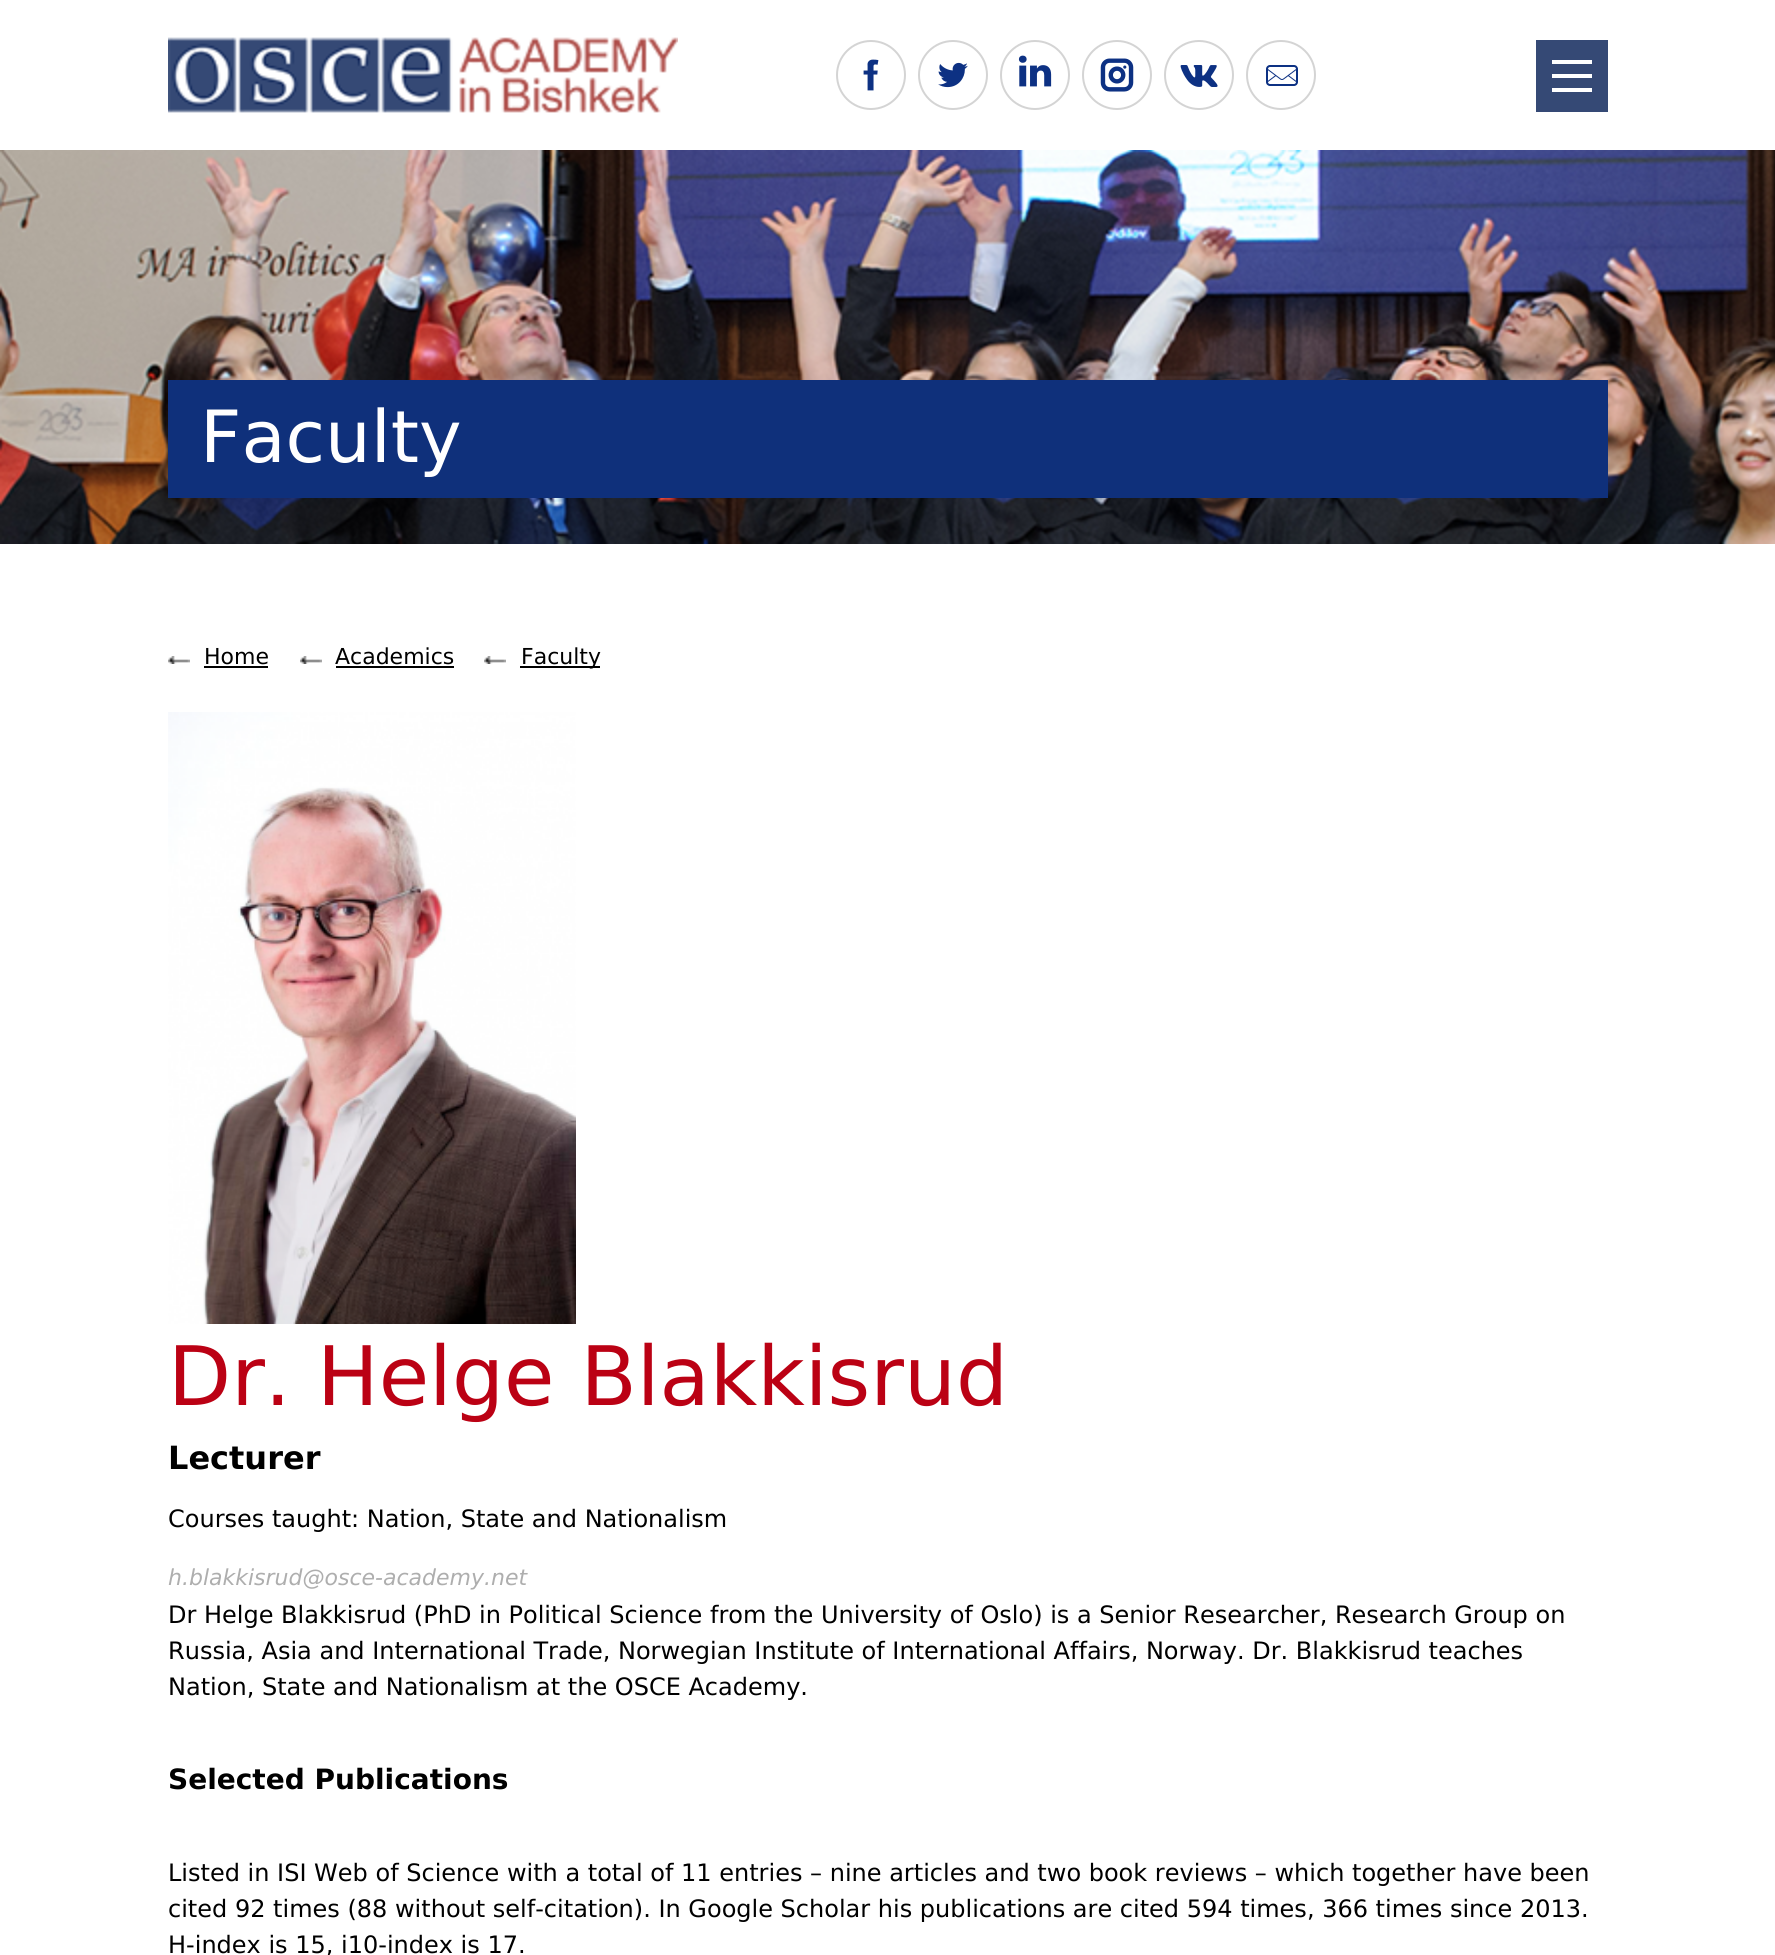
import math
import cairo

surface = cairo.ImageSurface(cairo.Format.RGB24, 1775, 1955)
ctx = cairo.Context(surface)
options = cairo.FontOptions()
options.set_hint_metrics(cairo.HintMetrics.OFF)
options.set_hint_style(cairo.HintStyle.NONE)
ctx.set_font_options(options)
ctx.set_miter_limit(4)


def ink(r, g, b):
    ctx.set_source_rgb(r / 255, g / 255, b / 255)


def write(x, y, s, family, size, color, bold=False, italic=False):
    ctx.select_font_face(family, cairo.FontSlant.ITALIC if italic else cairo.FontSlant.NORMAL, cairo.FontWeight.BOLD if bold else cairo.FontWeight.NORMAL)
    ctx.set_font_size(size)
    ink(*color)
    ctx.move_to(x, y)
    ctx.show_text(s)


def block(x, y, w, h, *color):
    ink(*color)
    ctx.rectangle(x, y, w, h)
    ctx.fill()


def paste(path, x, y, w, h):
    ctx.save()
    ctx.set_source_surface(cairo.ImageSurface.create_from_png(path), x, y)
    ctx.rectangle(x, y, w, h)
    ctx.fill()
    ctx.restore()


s1 = dict(family="DejaVu Sans", size=72, color=(255, 255, 255))
s2 = dict(family="DejaVu Sans", size=22, color=(0, 0, 0))
s3 = dict(family="DejaVu Sans", size=82, color=(187, 1, 20))
s4 = dict(family="DejaVu Sans", size=32, color=(0, 0, 0), bold=True)
s5 = dict(family="DejaVu Sans", size=24, color=(0, 0, 0))
s6 = dict(family="DejaVu Sans", size=22, color=(174, 174, 174), italic=True)
s7 = dict(family="DejaVu Sans", size=28, color=(0, 0, 0), bold=True)

ink(255, 255, 255)
ctx.paint()
paste("pic1.png", 168, 37, 510, 76)
paste("pic2.png", 863, 59, 16, 32)
ctx.arc(871, 75, 34, 0, 2 * math.pi)
ink(212, 212, 212)
ctx.stroke()
paste("pic3.png", 938, 62, 30, 26)
ctx.arc(953, 75, 34, 0, 2 * math.pi)
ctx.stroke()
paste("pic4.png", 1018, 55, 34, 32)
ctx.arc(1035, 75, 34, 0, 2 * math.pi)
ctx.stroke()
paste("pic5.png", 1100, 58, 34, 34)
ctx.arc(1117, 75, 34, 0, 2 * math.pi)
ctx.stroke()
paste("pic6.png", 1180, 65, 38, 22)
ctx.arc(1199, 75, 34, 0, 2 * math.pi)
ctx.stroke()
paste("pic7.png", 1266, 65, 32, 21)
ctx.arc(1281, 75, 34, 0, 2 * math.pi)
ctx.stroke()
block(1536, 40, 72, 72, 53, 73, 117)
block(1552, 60, 40, 4, 255, 255, 255)
block(1552, 74, 40, 4, 255, 255, 255)
block(1552, 88, 40, 4, 255, 255, 255)
paste("pic8.png", 0, 150, 1775, 394)
block(168, 380, 1440, 118, 15, 48, 123)
write(200, 462, "Faculty", **s1)
paste("pic9.png", 168, 656, 22, 8)
write(204, 664, "Home", **s2)
block(204, 666, 64, 2, 0, 0, 0)
paste("pic9.png", 300, 656, 22, 8)
write(335, 664, "Academics", **s2)
block(336, 666, 118, 2, 0, 0, 0)
paste("pic9.png", 484, 656, 22, 8)
block(520, 666, 80, 2, 0, 0, 0)
write(521, 664, "Faculty", **s2)
paste("pic10.png", 168, 712, 408, 612)
write(168, 1405, "Dr. Helge Blakkisrud", **s3)
write(168, 1469, "Lecturer", **s4)
write(168, 1527, "Courses taught: Nation, State and Nationalism", **s5)
write(168, 1585, "h.blakkisrud@osce-academy.net", **s6)
write(168, 1623, "Dr Helge Blakkisrud (PhD in Political Science from the University of Oslo) is a Senior Researcher, Research Group on", **s5)
write(168, 1659, "Russia, Asia and International Trade, Norwegian Institute of International Affairs, Norway. Dr. Blakkisrud teaches", **s5)
write(168, 1695, "Nation, State and Nationalism at the OSCE Academy.", **s5)
write(168, 1789, "Selected Publications", **s7)
write(168, 1881, "Listed in ISI Web of Science with a total of 11 entries – nine articles and two book reviews – which together have been", **s5)
write(168, 1917, "cited 92 times (88 without self-citation). In Google Scholar his publications are cited 594 times, 366 times since 2013.", **s5)
write(168, 1953, "H-index is 15, i10-index is 17.", **s5)
surface.write_to_png("screenshot.png")
